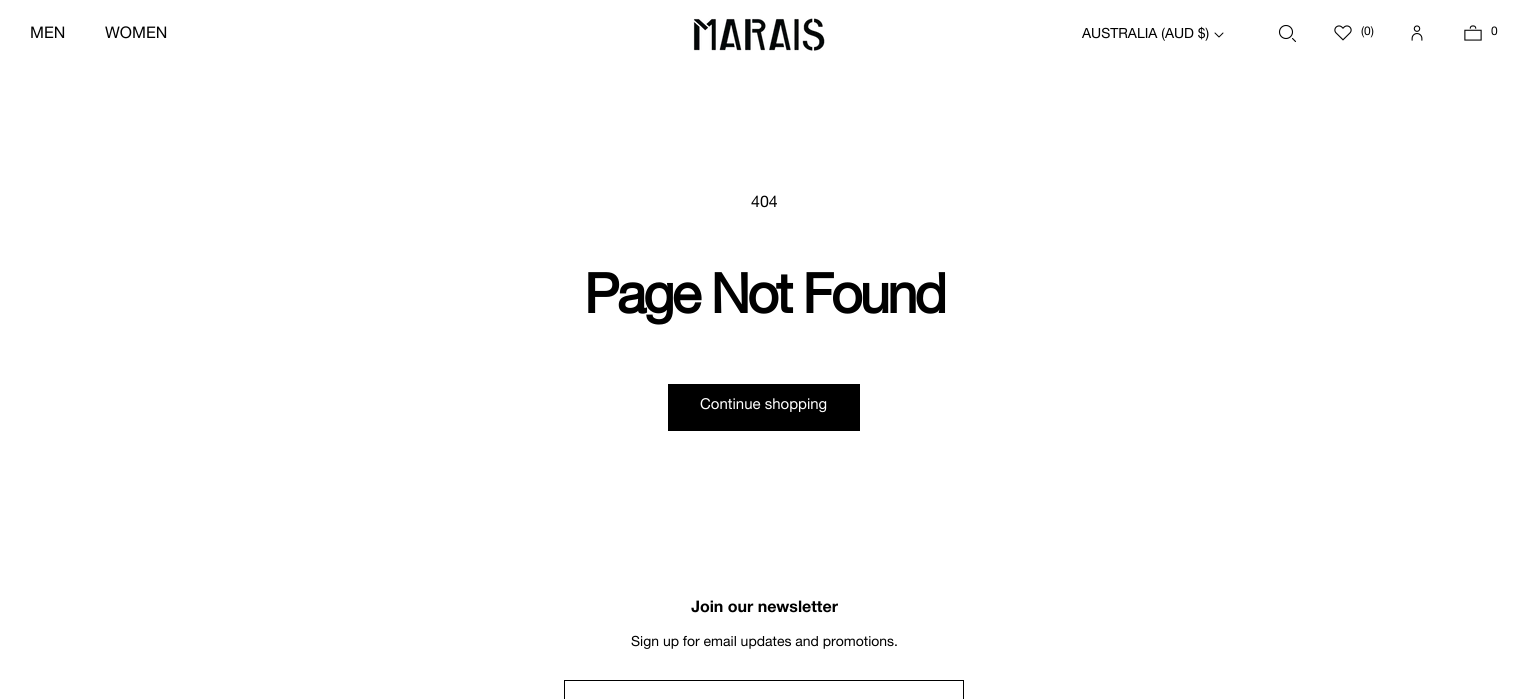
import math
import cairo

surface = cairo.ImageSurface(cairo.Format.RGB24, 1528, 699)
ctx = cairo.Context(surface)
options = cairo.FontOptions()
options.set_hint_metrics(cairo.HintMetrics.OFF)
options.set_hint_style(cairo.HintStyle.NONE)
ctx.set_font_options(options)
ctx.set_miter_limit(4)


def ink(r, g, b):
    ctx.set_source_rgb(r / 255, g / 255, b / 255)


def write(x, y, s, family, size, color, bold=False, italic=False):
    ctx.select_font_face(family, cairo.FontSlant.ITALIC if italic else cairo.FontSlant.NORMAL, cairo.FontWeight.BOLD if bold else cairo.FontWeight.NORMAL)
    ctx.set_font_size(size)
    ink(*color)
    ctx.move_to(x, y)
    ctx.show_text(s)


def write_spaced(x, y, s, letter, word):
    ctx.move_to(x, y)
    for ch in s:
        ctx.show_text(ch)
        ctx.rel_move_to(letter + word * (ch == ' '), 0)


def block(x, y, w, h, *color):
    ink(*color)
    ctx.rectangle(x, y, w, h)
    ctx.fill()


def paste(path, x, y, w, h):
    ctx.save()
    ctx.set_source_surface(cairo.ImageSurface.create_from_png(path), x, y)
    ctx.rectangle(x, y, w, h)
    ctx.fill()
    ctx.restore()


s1 = dict(family="Helvetica Neue", size=16, color=(0, 0, 0))
s2 = dict(family="Helvetica Neue", size=14, color=(0, 0, 0))
s3 = dict(family="Helvetica Neue", size=12, color=(0, 0, 0))
s4 = dict(family="Helvetica Neue", size=15, color=(255, 255, 255))
s5 = dict(family="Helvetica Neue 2", size=16, color=(0, 0, 0), bold=True)

ink(255, 255, 255)
ctx.paint()
write(30, 38, "MEN", **s1)
write(105, 38, "WOMEN", **s1)
paste("pic1.png", 693, 18, 132, 33)
write(1082, 38, "AUSTRALIA (AUD $)", **s2)
paste("pic2.png", 1214, 32, 10, 6)
ctx.arc(1286, 32, 6.5, 0, 2 * math.pi)
ctx.set_line_width(1.1)
ctx.stroke()
ctx.new_path()
ctx.move_to(1295.5, 41.5)
ctx.line_to(1292.5, 38.5)
ctx.set_line_cap(cairo.LineCap.ROUND)
ctx.stroke()
paste("pic3.png", 1334, 25, 18, 16)
write(1361, 35, "(0)", **s3)
paste("pic4.png", 1411, 25, 12, 16)
paste("pic5.png", 1464, 25, 18, 16)
write(1491, 35, "0", **s3)
write(751, 207, "404", **s1)
ctx.select_font_face("Helvetica Neue", cairo.FontSlant.NORMAL, cairo.FontWeight.BOLD)
ctx.set_font_size(55)
write_spaced(584, 313, "Page Not Found", -3, 0)
ctx.rectangle(668.5, 384.5, 191, 46)
ctx.set_line_width(1)
ctx.set_line_cap(cairo.LineCap.BUTT)
ctx.stroke()
block(669, 385, 190, 45, 0, 0, 0)
write(700, 409, "Continue shopping", **s4)
write(691, 612, "Join our newsletter", **s5)
write(631, 646, "Sign up for email updates and promotions.", **s2)
ctx.rectangle(564.5, 680.5, 399, 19)
ctx.stroke()
surface.write_to_png("screenshot.png")
